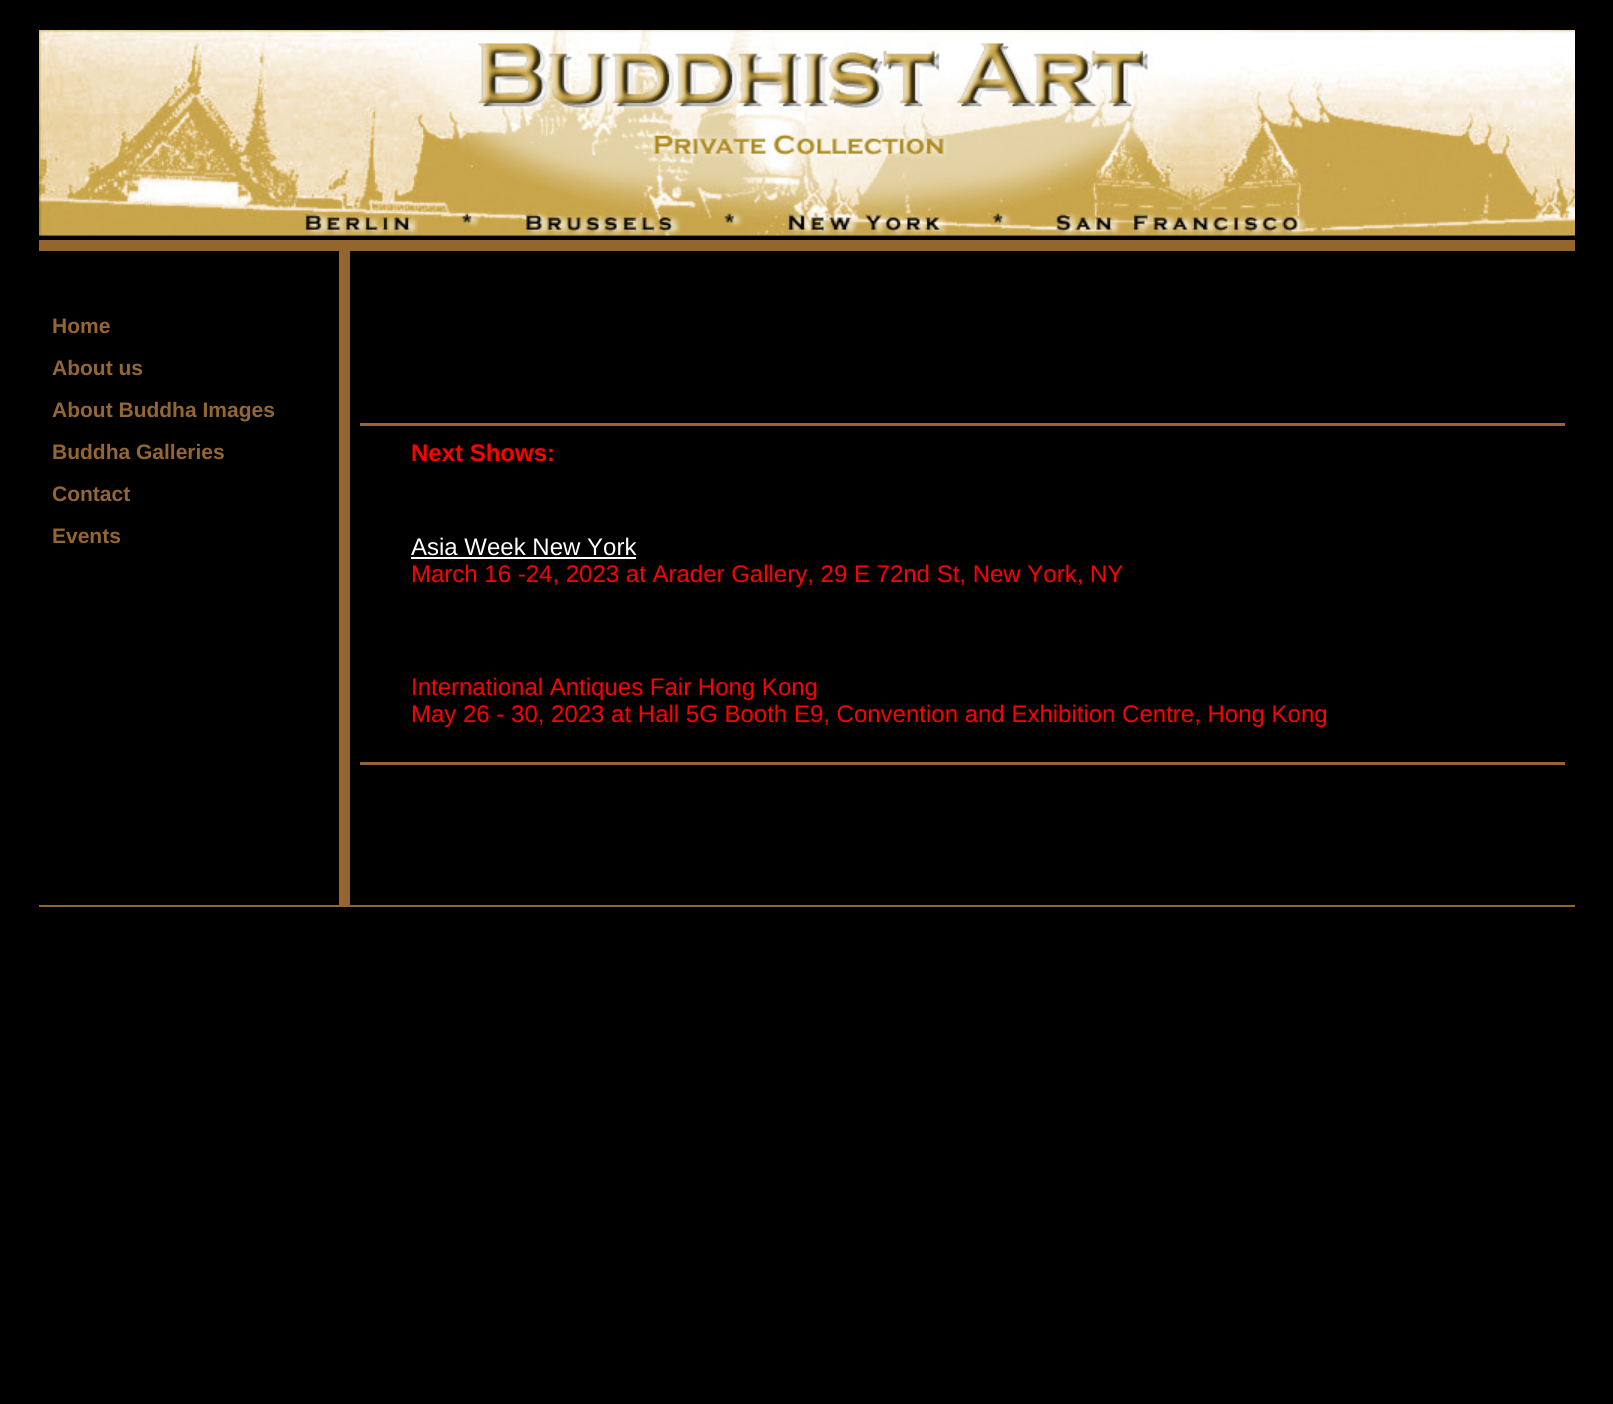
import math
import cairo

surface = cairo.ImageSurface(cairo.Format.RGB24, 1613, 1404)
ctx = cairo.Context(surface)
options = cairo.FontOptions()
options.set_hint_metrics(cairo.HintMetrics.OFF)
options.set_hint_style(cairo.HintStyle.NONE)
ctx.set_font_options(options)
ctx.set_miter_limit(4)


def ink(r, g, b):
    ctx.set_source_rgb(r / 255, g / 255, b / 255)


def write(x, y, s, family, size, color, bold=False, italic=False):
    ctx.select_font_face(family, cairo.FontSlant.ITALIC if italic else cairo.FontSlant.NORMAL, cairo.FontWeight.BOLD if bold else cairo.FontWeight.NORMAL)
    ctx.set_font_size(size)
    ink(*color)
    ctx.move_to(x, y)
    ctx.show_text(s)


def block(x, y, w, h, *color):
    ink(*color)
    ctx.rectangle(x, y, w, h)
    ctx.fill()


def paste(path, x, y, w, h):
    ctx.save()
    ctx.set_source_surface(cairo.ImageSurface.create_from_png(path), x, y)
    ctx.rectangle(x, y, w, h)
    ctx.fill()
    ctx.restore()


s1 = dict(family="Liberation Sans", size=21, color=(148, 102, 51), bold=True)
s2 = dict(family="Liberation Sans", size=24, color=(255, 0, 0), bold=True)
s3 = dict(family="Liberation Sans", size=24, color=(255, 255, 255))
s4 = dict(family="Liberation Sans", size=24, color=(255, 0, 0))

ink(0, 0, 0)
ctx.paint()
block(39, 240, 1536, 11, 148, 102, 46)
paste("pic1.png", 39, 30, 1536, 210)
write(52, 333, "Home", **s1)
write(52, 375, "About us", **s1)
write(52, 417, "About Buddha Images", **s1)
write(52, 459, "Buddha Galleries", **s1)
write(52, 501, "Contact", **s1)
write(52, 543, "Events", **s1)
block(339, 251, 11, 654, 148, 102, 46)
block(360, 423, 1205, 3, 148, 102, 51)
write(411, 461, "Next Shows:", **s2)
write(411, 555, "Asia Week New York", **s3)
block(411, 557, 225, 2, 255, 255, 255)
write(411, 582, "March 16 -24, 2023 at Arader Gallery, 29 E 72nd St, New York, NY", **s4)
write(411, 695, "International Antiques Fair Hong Kong", **s4)
write(411, 722, "May 26 - 30, 2023 at Hall 5G Booth E9, Convention and Exhibition Centre, Hong Kong", **s4)
block(360, 762, 1205, 3, 148, 102, 51)
block(39, 905, 1536, 2, 148, 102, 46)
surface.write_to_png("screenshot.png")
